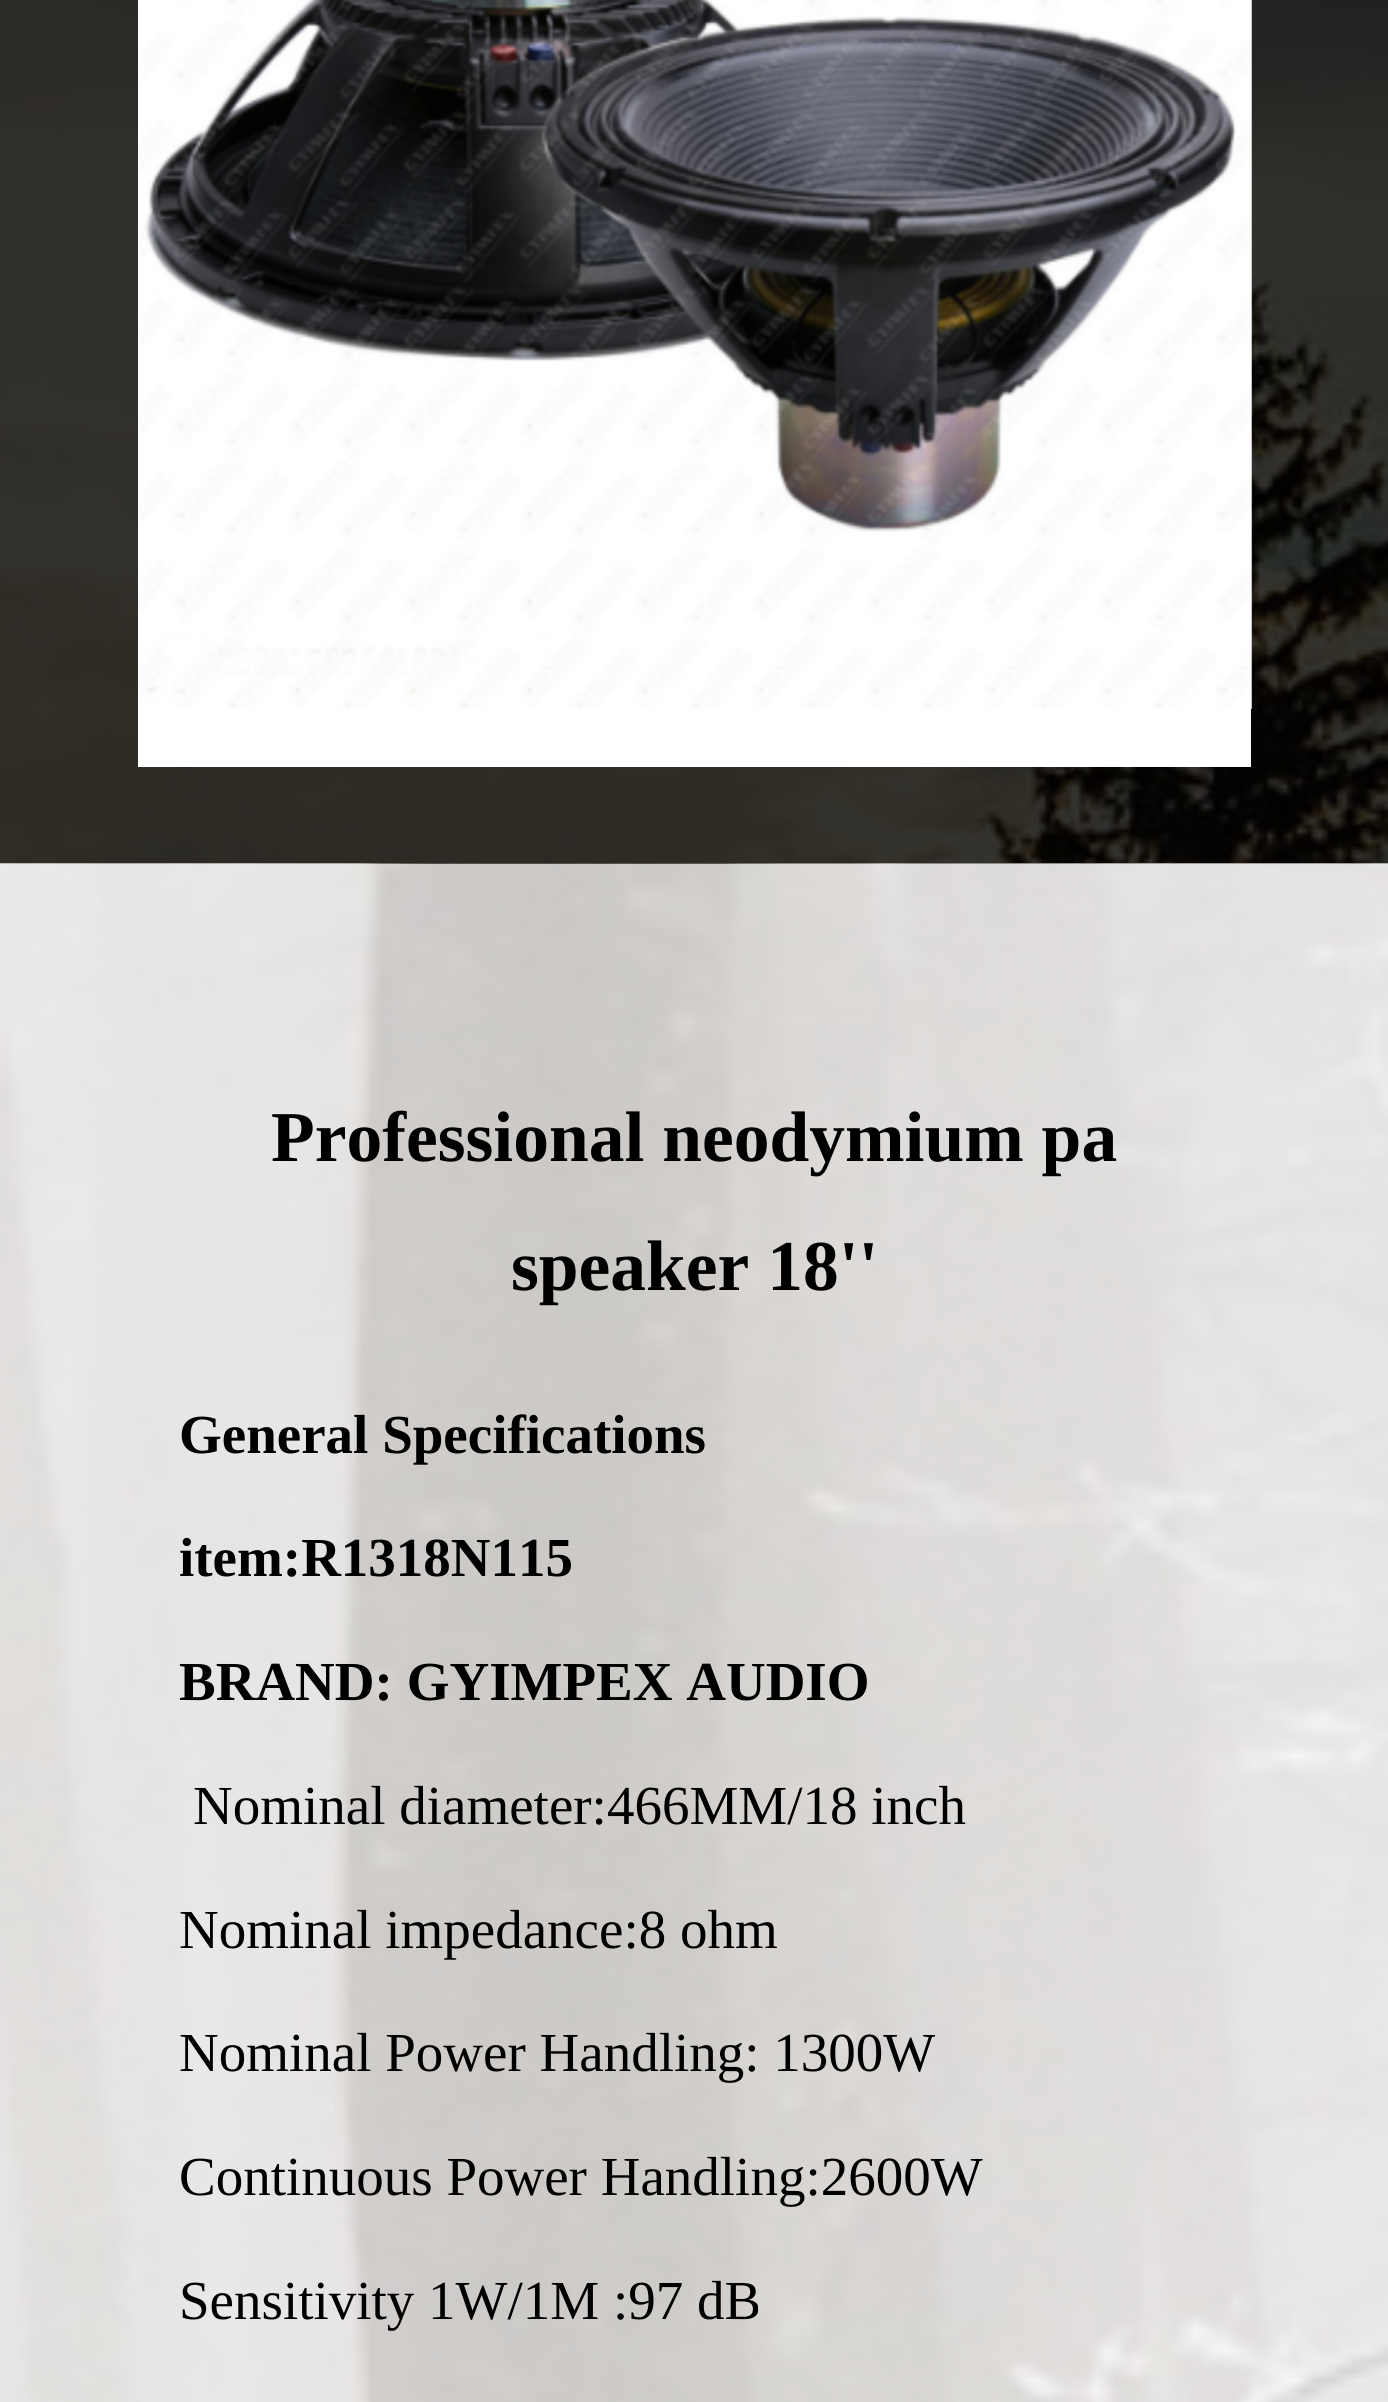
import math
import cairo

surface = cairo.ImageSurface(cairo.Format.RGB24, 1388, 2402)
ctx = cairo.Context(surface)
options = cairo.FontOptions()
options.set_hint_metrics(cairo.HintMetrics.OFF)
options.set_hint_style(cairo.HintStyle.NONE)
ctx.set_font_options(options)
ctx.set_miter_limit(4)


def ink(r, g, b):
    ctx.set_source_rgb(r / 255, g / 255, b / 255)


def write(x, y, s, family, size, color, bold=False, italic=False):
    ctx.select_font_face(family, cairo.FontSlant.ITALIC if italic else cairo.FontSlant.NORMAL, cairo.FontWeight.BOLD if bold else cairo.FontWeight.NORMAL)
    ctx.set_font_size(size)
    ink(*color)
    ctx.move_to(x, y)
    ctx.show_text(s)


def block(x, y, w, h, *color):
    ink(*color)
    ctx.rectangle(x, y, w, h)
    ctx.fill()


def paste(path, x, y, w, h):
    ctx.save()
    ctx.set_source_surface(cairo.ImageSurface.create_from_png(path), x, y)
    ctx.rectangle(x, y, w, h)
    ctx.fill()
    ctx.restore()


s1 = dict(family="Liberation Serif", size=71.5, color=(0, 0, 0), bold=True)
s2 = dict(family="Liberation Serif", size=55, color=(0, 0, 0), bold=True)
s3 = dict(family="Liberation Serif", size=55, color=(0, 0, 0))

ink(255, 255, 255)
ctx.paint()
paste("pic1.png", 0, 0, 1388, 863)
block(138, 0, 1113, 767, 255, 255, 255)
paste("pic2.png", 138, 0, 1114, 709)
paste("pic3.png", 0, 863, 1388, 1539)
write(271, 1161, "Professional neodymium pa", **s1)
write(511, 1290, "speaker 18''", **s1)
write(179, 1453, "General Specifications", **s2)
write(179, 1576, "item:R1318N115", **s2)
write(179, 1700, "BRAND: GYIMPEX AUDIO", **s2)
write(193, 1824, "Nominal diameter:466MM/18 inch", **s3)
write(179, 1948, "Nominal impedance:8 ohm", **s3)
write(179, 2071, "Nominal Power Handling: 1300W", **s3)
write(179, 2195, "Continuous Power Handling:2600W", **s3)
write(179, 2319, "Sensitivity 1W/1M :97 dB", **s3)
surface.write_to_png("screenshot.png")
